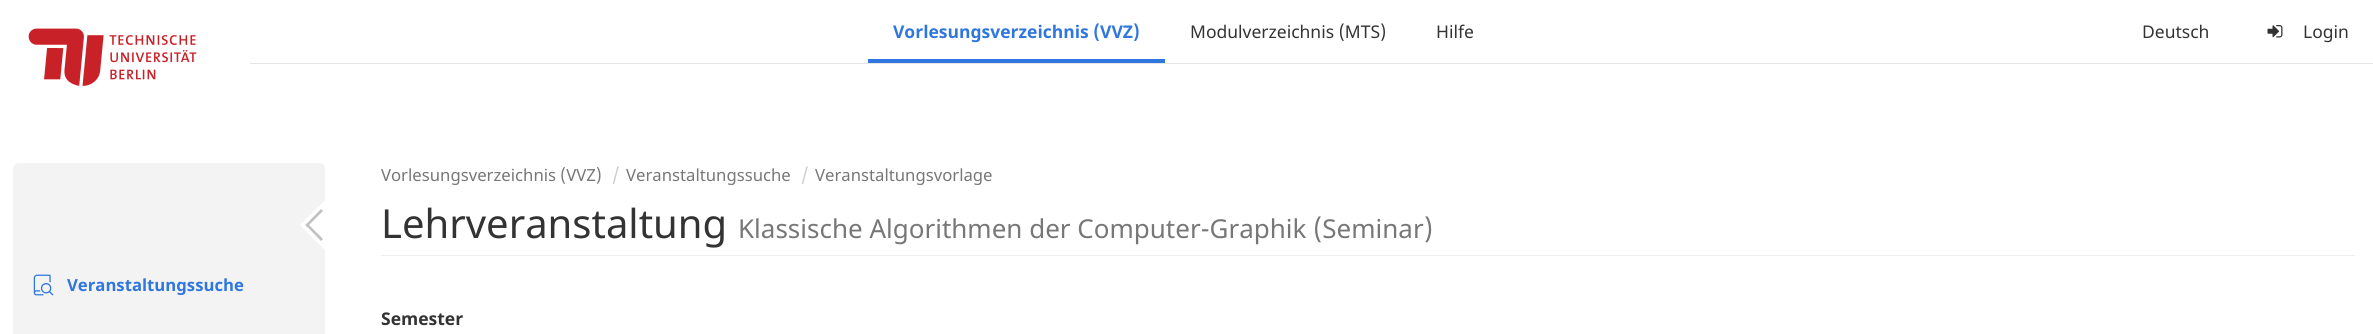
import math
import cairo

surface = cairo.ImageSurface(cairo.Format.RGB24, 2373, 334)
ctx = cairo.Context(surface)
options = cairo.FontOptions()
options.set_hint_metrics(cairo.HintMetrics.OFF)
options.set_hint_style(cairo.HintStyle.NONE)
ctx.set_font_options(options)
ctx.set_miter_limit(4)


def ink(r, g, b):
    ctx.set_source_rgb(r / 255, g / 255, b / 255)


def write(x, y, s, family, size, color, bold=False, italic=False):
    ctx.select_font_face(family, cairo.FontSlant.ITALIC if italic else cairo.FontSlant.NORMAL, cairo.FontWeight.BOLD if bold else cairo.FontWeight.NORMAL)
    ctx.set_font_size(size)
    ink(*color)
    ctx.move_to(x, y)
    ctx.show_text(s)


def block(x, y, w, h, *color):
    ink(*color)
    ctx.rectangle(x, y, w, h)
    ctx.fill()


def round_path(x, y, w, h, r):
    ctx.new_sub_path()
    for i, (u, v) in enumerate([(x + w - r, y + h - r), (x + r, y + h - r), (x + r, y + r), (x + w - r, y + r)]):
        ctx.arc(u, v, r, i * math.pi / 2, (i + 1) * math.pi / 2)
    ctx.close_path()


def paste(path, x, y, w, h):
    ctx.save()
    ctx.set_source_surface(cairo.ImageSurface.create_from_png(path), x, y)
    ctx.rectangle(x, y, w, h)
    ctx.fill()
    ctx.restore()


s1 = dict(family="Noto Sans", size=17.5, color=(47, 118, 223), bold=True)
s2 = dict(family="Noto Sans", size=17.5, color=(51, 51, 51))
s3 = dict(family="Noto Sans", size=16.7, color=(47, 118, 223), bold=True)
s4 = dict(family="Noto Sans", size=16.7, color=(119, 119, 119))
s5 = dict(family="Noto Sans", size=17.5, color=(204, 204, 204))
s6 = dict(family="Noto Sans", size=40, color=(51, 51, 51))
s7 = dict(family="Noto Sans", size=26, color=(119, 119, 119))
s8 = dict(family="Noto Sans", size=17.5, color=(51, 51, 51), bold=True)

ink(255, 255, 255)
ctx.paint()
paste("pic1.png", 28, 28, 169, 58)
block(868, 59, 297, 4, 47, 118, 223)
write(893, 38, "Vorlesungsverzeichnis (VVZ)", **s1)
write(1190, 38, "Modulverzeichnis (MTS)", **s2)
write(1436, 38, "Hilfe", **s2)
write(2142, 38, "Deutsch", **s2)
paste("pic2.png", 2267, 25, 16, 13)
write(2303, 38, "Login", **s2)
block(250, 63, 2123, 1, 229, 229, 229)
ink(243, 243, 243)
round_path(13, 163, 312, 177, 6)
ctx.fill()
ink(255, 255, 255)
ctx.new_path()
ctx.move_to(325, 200)
ctx.line_to(325, 250)
ctx.line_to(300, 225)
ctx.close_path()
ctx.fill()
ink(193, 193, 193)
ctx.new_path()
ctx.move_to(323, 239)
ctx.line_to(321, 241)
ctx.line_to(305.5, 225)
ctx.line_to(307, 223)
ctx.close_path()
ctx.fill()
ctx.new_path()
ctx.move_to(323, 211)
ctx.line_to(307, 227)
ctx.line_to(305.5, 225)
ctx.line_to(321, 209)
ctx.close_path()
ctx.fill()
paste("pic3.png", 33, 274, 21, 22)
write(67, 291, "Veranstaltungssuche", **s3)
block(381, 255, 1974, 1, 238, 238, 238)
write(381, 181, "Vorlesungsverzeichnis (VVZ)", **s4)
write(612, 181, "/", **s5)
write(626, 181, "Veranstaltungssuche", **s4)
write(801, 181, "/", **s5)
write(815, 181, "Veranstaltungsvorlage", **s4)
write(381, 238, "Lehrveranstaltung", **s6)
write(738, 238, "Klassische Algorithmen der Computer-Graphik (Seminar)", **s7)
write(381, 325, "Semester", **s8)
surface.write_to_png("screenshot.png")
